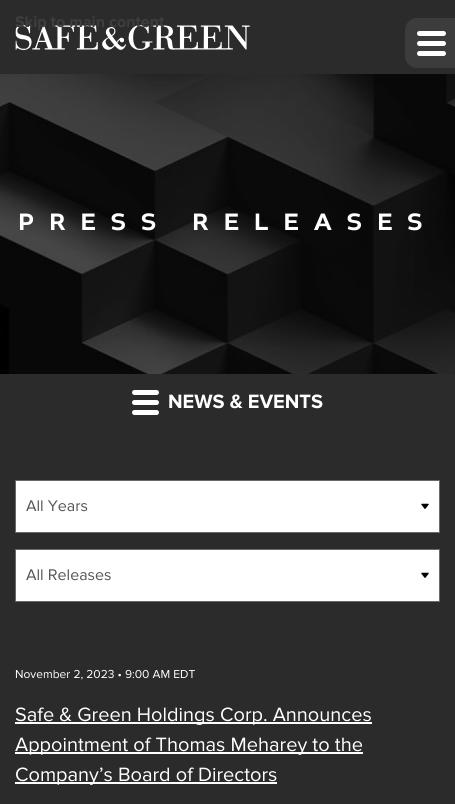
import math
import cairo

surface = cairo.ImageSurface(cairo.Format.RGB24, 455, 804)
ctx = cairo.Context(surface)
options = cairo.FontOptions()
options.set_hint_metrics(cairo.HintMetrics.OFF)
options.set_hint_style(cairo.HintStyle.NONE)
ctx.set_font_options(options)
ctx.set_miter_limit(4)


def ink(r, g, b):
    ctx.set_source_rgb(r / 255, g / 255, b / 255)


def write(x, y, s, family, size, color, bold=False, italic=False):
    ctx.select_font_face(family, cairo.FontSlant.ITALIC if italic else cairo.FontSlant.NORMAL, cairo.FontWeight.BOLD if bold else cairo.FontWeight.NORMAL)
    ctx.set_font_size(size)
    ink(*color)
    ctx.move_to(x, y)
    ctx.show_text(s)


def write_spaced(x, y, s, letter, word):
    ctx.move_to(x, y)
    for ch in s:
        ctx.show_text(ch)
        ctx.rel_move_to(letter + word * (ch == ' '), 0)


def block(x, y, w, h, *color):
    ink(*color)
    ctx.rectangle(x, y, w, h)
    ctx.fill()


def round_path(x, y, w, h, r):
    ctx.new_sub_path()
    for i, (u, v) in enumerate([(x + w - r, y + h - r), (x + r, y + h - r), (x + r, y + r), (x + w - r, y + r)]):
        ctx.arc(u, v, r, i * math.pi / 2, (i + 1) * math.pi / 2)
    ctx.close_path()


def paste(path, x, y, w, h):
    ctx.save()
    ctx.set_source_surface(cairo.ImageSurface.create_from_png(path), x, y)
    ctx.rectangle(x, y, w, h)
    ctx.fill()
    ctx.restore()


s1 = dict(family="Proxima Nova", size=16, color=(62, 62, 62), bold=True)
s2 = dict(family="Proxima Nova", size=20, color=(255, 255, 255), bold=True)
s3 = dict(family="Proxima Nova", size=16, color=(85, 85, 85))
s4 = dict(family="Proxima Nova", size=12, color=(255, 255, 255))
s5 = dict(family="Proxima Nova", size=20, color=(255, 255, 255))

ink(43, 43, 43)
ctx.paint()
paste("pic1.png", 15, 25, 235, 25)
write(15, 27, "Skip to main content", **s1)
ink(60, 60, 60)
ctx.new_path()
ctx.move_to(417, 18)
ctx.line_to(455, 18)
ctx.line_to(455, 68)
ctx.line_to(417, 68)
ctx.curve_to(410.5, 68, 405, 62.5, 405, 56)
ctx.line_to(405, 30)
ctx.curve_to(405, 23.5, 410.5, 18, 417, 18)
ctx.close_path()
ctx.fill()
ink(255, 255, 255)
round_path(417, 31, 29, 5, 2.5)
ctx.fill()
round_path(417, 41, 29, 5, 2.5)
ctx.fill()
round_path(417, 51, 29, 5, 2.5)
ctx.fill()
paste("pic2.png", 0, 74, 455, 300)
ctx.select_font_face("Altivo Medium")
ctx.set_font_size(25)
write_spaced(18, 230, "PRESS RELEASES", 15, 0)
round_path(132, 390, 27, 5, 2.5)
ctx.fill()
round_path(132, 400, 27, 5, 2.5)
ctx.fill()
round_path(132, 410, 27, 5, 2.5)
ctx.fill()
write(168, 408, "NEWS & EVENTS", **s2)
block(16, 481, 423, 51, 255, 255, 255)
paste("pic3.png", 421, 503, 8, 6)
ctx.rectangle(15.5, 480.5, 424, 52)
ink(105, 105, 105)
ctx.set_line_width(1)
ctx.stroke()
write(26, 511, "All Years", **s3)
block(16, 550, 423, 51, 255, 255, 255)
paste("pic3.png", 421, 572, 8, 6)
ctx.rectangle(15.5, 549.5, 424, 52)
ink(105, 105, 105)
ctx.stroke()
write(26, 580, "All Releases", **s3)
write(15, 678, "November 2, 2023 • 9:00 AM EDT", **s4)
block(15, 722, 357, 2, 255, 255, 255)
write(15, 721, "Safe & Green Holdings Corp. Announces", **s5)
block(15, 752, 348, 2, 255, 255, 255)
write(15, 751, "Appointment of Thomas Meharey to the", **s5)
block(15, 782, 262, 2, 255, 255, 255)
write(15, 781, "Company’s Board of Directors", **s5)
surface.write_to_png("screenshot.png")
